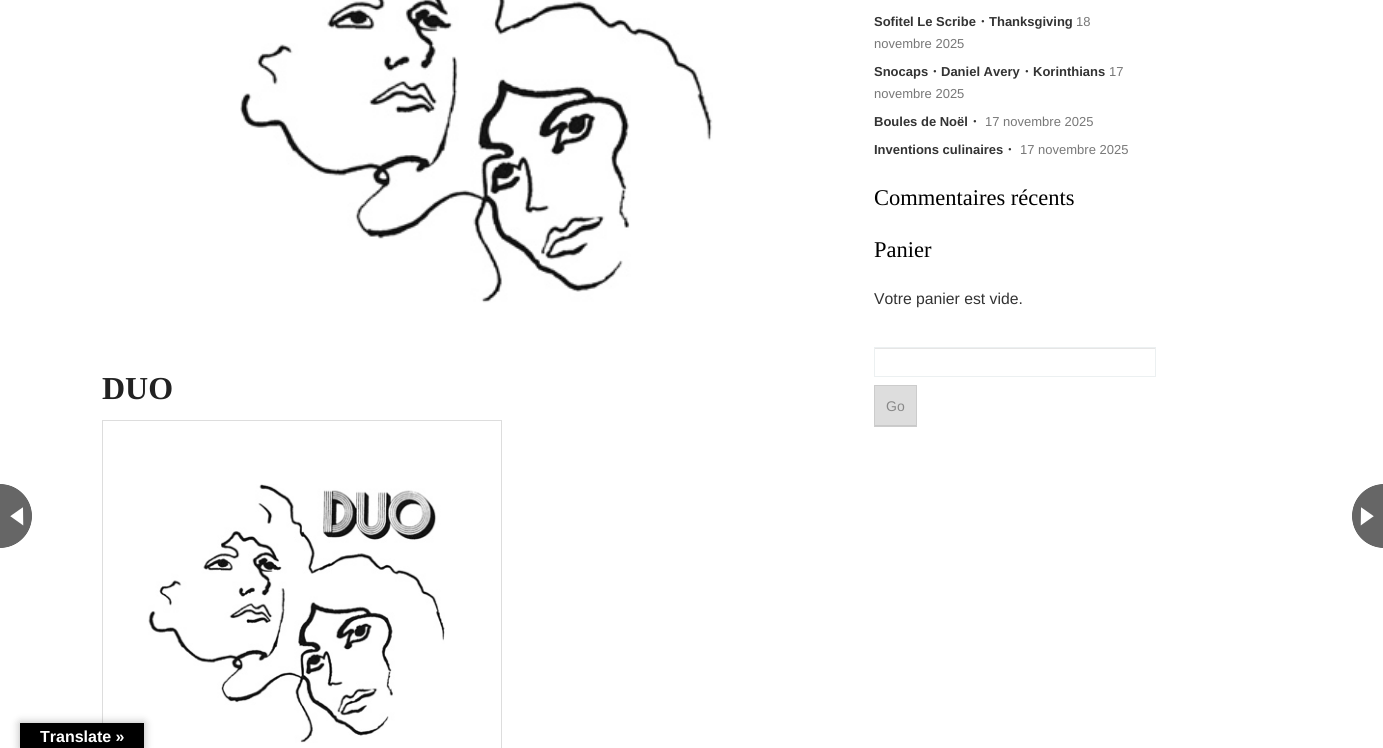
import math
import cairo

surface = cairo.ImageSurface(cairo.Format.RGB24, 1383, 748)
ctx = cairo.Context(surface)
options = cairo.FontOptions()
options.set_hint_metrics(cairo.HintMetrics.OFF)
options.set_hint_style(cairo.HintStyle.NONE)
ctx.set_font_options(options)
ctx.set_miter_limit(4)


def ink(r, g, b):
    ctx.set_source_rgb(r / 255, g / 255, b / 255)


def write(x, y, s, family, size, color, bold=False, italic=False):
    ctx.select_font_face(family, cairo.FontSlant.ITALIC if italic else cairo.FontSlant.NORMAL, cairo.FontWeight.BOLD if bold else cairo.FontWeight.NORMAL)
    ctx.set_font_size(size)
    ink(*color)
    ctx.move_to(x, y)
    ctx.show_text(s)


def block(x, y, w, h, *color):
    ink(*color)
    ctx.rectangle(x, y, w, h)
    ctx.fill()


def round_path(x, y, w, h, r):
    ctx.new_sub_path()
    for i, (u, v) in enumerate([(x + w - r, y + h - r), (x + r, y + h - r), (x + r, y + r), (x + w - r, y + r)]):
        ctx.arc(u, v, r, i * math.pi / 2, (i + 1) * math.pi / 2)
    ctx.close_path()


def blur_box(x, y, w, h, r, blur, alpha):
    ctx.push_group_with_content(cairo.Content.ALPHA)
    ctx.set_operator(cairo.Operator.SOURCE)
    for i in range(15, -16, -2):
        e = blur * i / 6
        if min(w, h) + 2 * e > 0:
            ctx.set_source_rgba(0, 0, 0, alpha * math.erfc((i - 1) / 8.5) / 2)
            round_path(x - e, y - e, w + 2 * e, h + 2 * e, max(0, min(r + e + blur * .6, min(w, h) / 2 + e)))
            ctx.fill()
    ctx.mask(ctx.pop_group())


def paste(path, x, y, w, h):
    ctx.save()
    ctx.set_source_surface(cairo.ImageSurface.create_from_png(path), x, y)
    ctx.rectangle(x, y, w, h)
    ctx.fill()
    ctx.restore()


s1 = dict(family="Liberation Serif", size=32, color=(34, 34, 34), bold=True)
s2 = dict(family="Liberation Sans", size=13, color=(51, 51, 51), bold=True)
s3 = dict(family="WenQuanYi Zen Hei", size=13, color=(51, 51, 51), bold=True)
s4 = dict(family="Liberation Sans", size=13, color=(119, 119, 119))
s5 = dict(family="Liberation Serif", size=22.5, color=(0, 0, 0))
s6 = dict(family="Liberation Sans", size=15.75, color=(51, 51, 51))
s7 = dict(family="Liberation Sans", size=14, color=(136, 136, 136))
s8 = dict(family="Liberation Sans", size=16, color=(255, 255, 255), bold=True)

ink(255, 255, 255)
ctx.paint()
paste("pic1.png", 240, 0, 473, 303)
write(102, 399, "DUO", **s1)
ctx.rectangle(102.5, 420.5, 399, 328)
ink(221, 221, 221)
ctx.set_line_width(1)
ctx.stroke()
paste("pic2.png", 148, 484, 297, 259)
write(874, 26, "Sofitel Le Scribe", **s2)
write(976, 26, "・", **s3)
write(989, 26, "Thanksgiving", **s2)
write(1076, 26, "18", **s4)
write(874, 48, "novembre 2025", **s4)
write(874, 76, "Snocaps", **s2)
write(928, 76, "・", **s3)
write(941, 76, "Daniel Avery", **s2)
write(1020, 76, "・", **s3)
write(1033, 76, "Korinthians", **s2)
write(1109, 76, "17", **s4)
write(874, 98, "novembre 2025", **s4)
write(874, 126, "Boules de Noël", **s2)
write(968, 126, "・", **s3)
write(985, 126, "17 novembre 2025", **s4)
write(874, 154, "Inventions culinaires", **s2)
write(1003, 154, "・", **s3)
write(1020, 154, "17 novembre 2025", **s4)
write(874, 205, "Commentaires récents", **s5)
write(874, 257, "Panier", **s5)
write(874, 304, "Votre panier est vide.", **s6)
block(875, 348, 280, 1, 230, 230, 230)
ctx.rectangle(874.5, 347.5, 281, 29)
ink(236, 240, 241)
ctx.stroke()
block(875, 386, 41, 39, 221, 221, 221)
block(875, 425, 41, 1, 201, 201, 201)
ctx.rectangle(874.5, 385.5, 42, 41)
ink(204, 204, 204)
ctx.stroke()
write(886, 411, "Go", **s7)
paste("pic3.png", 0, 484, 32, 64)
paste("pic4.png", 1352, 484, 31, 64)
ink(0, 0, 0)
blur_box(20, 723, 124, 25, 0, 4.5, 0.3)
block(20, 723, 124, 25, 0, 0, 0)
write(40, 742, "Translate »", **s8)
surface.write_to_png("screenshot.png")
